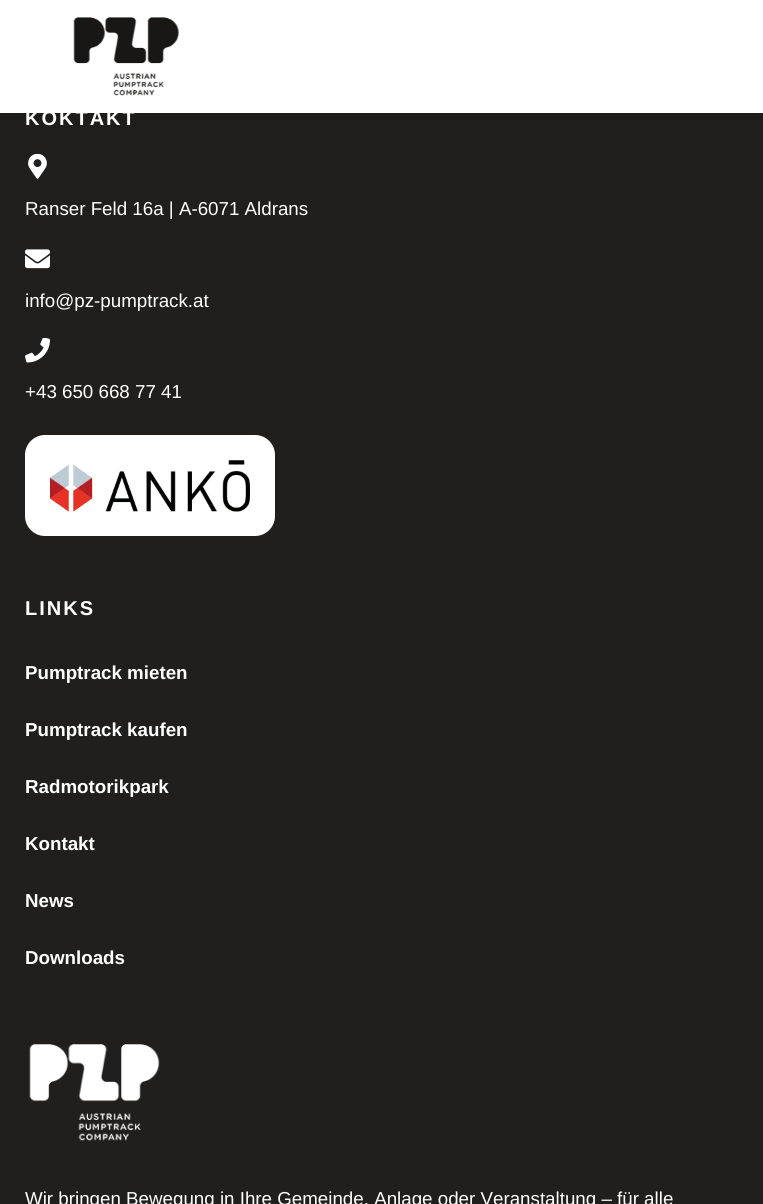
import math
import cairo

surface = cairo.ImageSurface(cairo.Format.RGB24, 763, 1204)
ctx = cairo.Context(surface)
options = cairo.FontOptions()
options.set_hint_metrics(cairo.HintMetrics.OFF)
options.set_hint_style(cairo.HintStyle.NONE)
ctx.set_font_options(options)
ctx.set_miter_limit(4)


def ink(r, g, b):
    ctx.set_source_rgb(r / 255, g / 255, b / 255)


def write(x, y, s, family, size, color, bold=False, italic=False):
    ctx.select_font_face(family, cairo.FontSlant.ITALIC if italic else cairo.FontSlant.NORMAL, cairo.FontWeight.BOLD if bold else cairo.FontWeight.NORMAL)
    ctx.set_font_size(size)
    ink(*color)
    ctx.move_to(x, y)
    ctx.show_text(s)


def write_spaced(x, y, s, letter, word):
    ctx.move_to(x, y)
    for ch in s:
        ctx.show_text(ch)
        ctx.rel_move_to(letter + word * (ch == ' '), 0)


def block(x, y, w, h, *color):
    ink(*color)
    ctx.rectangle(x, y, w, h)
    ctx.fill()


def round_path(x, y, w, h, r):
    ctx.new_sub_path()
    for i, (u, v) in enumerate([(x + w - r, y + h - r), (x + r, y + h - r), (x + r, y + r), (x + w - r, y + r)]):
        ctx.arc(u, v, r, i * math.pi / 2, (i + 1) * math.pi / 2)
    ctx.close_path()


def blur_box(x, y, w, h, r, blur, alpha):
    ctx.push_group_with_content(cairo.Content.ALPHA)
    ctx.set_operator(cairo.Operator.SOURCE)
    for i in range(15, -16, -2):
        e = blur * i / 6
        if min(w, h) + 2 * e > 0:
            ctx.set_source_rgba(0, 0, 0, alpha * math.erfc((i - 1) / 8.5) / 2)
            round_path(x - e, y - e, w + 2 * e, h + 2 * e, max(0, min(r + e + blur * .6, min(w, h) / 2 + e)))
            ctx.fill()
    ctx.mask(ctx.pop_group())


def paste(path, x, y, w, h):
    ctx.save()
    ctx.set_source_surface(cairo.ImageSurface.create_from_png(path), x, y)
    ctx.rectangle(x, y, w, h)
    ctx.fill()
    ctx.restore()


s1 = dict(family="Liberation Sans", size=18.75, color=(255, 255, 255))
s2 = dict(family="Liberation Sans", size=18.75, color=(255, 255, 255), bold=True)

ink(32, 31, 30)
ctx.paint()
paste("pic2.png", 28, 154, 19, 25)
ink(0, 0, 0)
blur_box(0, 5, 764, 113, 0, 13, 0.11)
block(0, 0, 763, 113, 255, 255, 255)
paste("pic1.png", 73, 17, 106, 79)
ctx.select_font_face("Liberation Sans", cairo.FontSlant.NORMAL, cairo.FontWeight.BOLD)
ctx.set_font_size(20)
write_spaced(25, 125, "KOKTAKT", 2, 0)
write(25, 215, "Ranser Feld 16a | A-6071 Aldrans", **s1)
paste("pic3.png", 25, 249, 25, 20)
write(25, 307, "info@pz-pumptrack.at", **s1)
paste("pic4.png", 25, 338, 25, 25)
write(25, 398, "+43 650 668 77 41", **s1)
round_path(25, 435, 250, 101, 20)
ctx.fill()
paste("pic5.png", 50, 460, 200, 52)
ctx.select_font_face("Liberation Sans", cairo.FontSlant.NORMAL, cairo.FontWeight.BOLD)
ctx.set_font_size(20)
write_spaced(25, 615, "LINKS", 2, 0)
write(25, 679, "Pumptrack mieten", **s2)
write(25, 736, "Pumptrack kaufen", **s2)
write(25, 793, "Radmotorikpark", **s2)
write(25, 850, "Kontakt", **s2)
write(25, 907, "News", **s2)
write(25, 964, "Downloads", **s2)
paste("pic6.png", 29, 1044, 131, 97)
write(25, 1205, "Wir bringen Bewegung in Ihre Gemeinde, Anlage oder Veranstaltung – für alle", **s1)
surface.write_to_png("screenshot.png")
